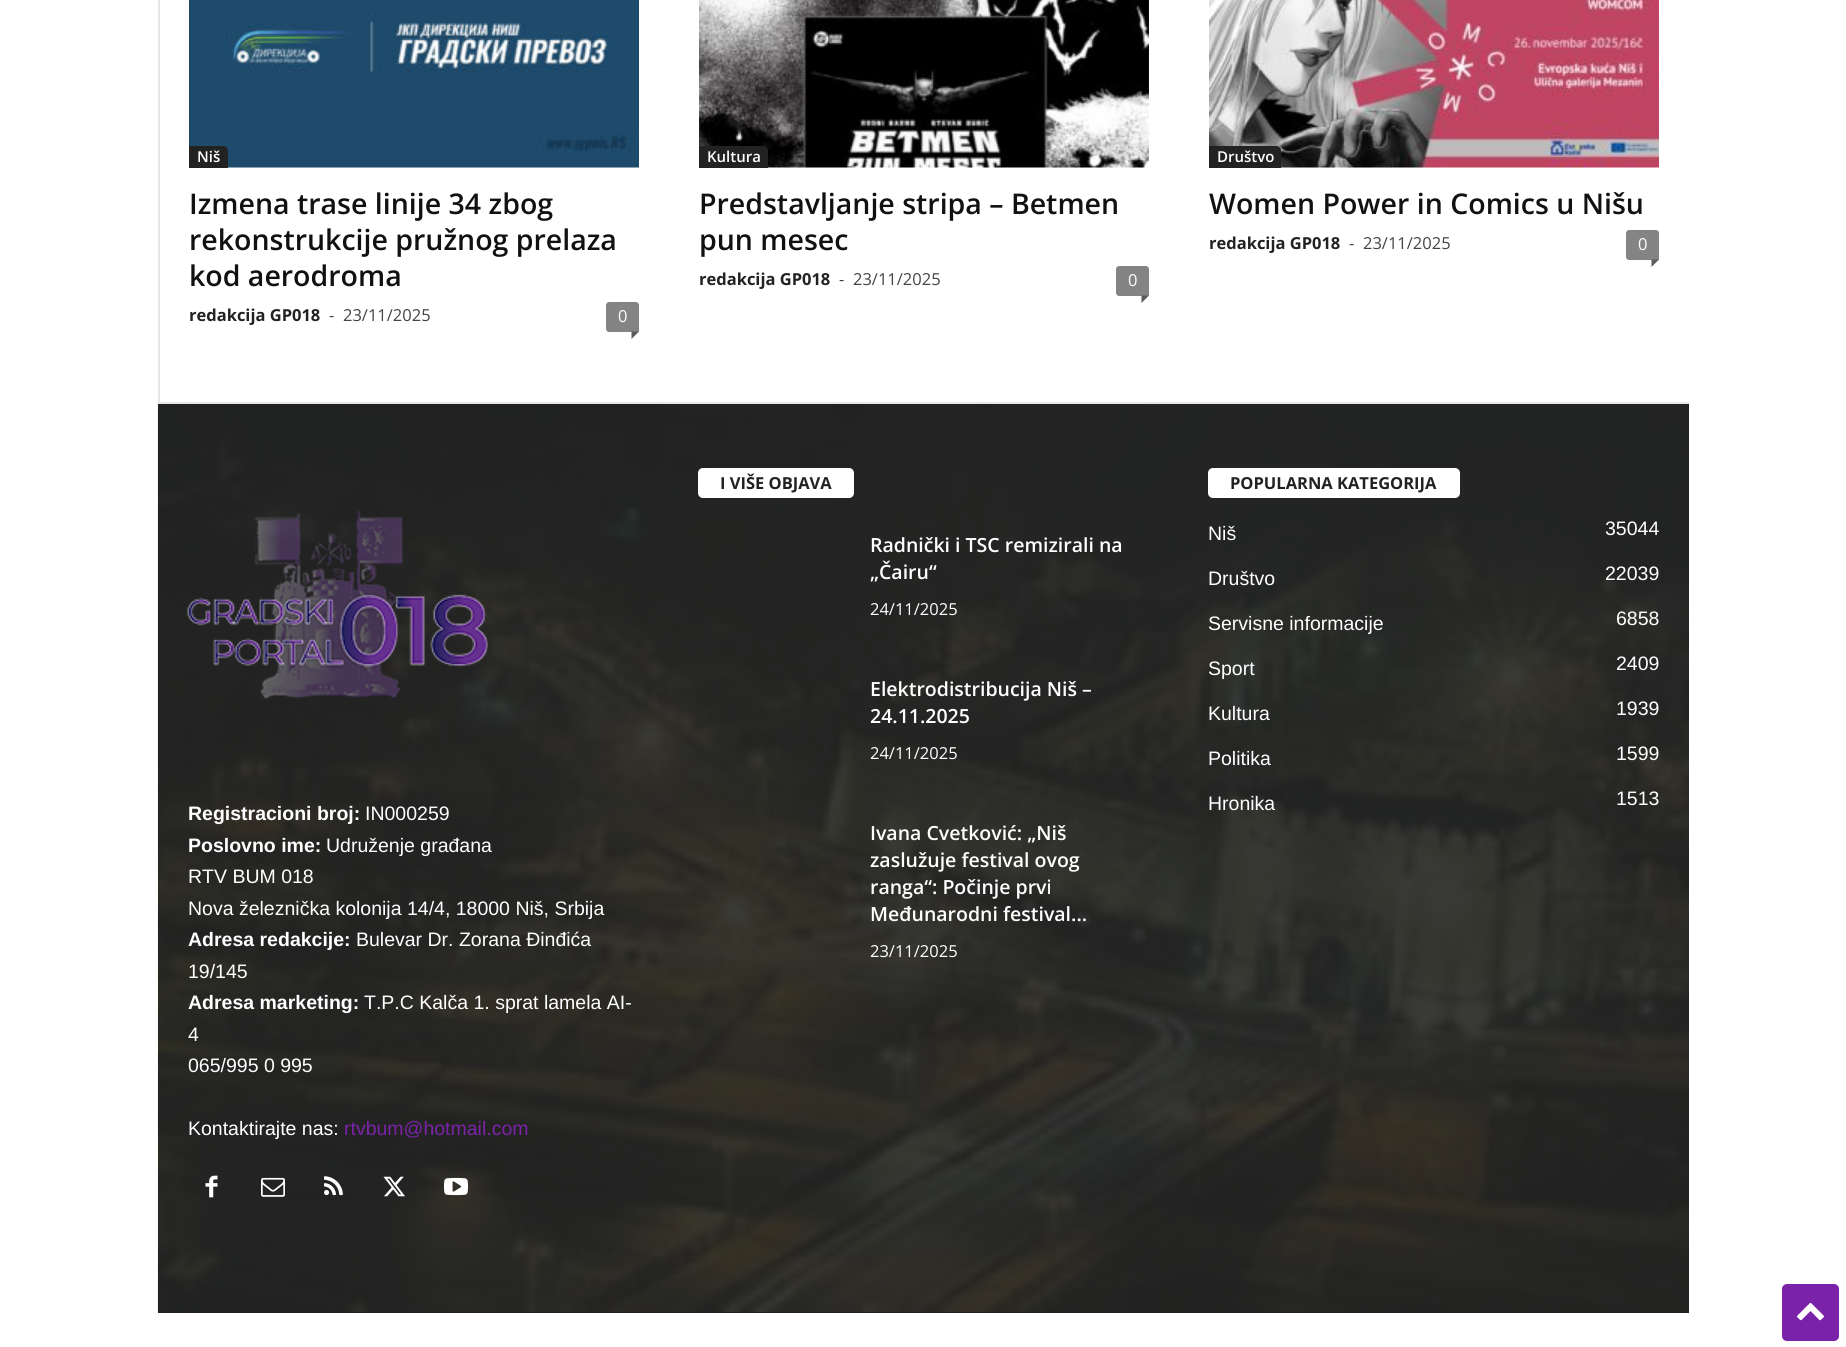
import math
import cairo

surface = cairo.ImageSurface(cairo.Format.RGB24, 1846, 1347)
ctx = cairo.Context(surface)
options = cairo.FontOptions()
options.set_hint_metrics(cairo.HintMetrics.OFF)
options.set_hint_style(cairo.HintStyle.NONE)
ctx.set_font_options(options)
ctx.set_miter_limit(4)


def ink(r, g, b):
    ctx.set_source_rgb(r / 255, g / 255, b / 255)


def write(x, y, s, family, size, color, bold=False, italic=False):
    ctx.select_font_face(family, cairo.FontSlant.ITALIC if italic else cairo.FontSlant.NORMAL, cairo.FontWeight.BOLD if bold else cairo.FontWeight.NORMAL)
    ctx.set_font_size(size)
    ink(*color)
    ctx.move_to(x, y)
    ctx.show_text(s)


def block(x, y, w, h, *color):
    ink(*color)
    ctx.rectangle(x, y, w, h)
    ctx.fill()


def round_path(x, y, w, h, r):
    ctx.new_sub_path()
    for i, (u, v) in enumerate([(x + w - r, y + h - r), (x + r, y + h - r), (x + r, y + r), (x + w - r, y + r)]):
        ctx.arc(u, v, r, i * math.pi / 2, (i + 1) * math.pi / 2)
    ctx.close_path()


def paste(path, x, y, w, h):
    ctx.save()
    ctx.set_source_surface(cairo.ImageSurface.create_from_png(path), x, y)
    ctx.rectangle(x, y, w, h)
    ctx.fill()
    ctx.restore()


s1 = dict(family="Open Sans SemiBold", size=15, color=(255, 255, 255))
s2 = dict(family="Open Sans SemiBold", size=28.5, color=(17, 17, 17))
s3 = dict(family="Open Sans", size=16.5, color=(34, 34, 34), bold=True)
s4 = dict(family="Open Sans", size=16.5, color=(68, 68, 68))
s5 = dict(family="Open Sans", size=16.5, color=(255, 255, 255))
s6 = dict(family="Open Sans SemiBold", size=19.5, color=(255, 255, 255))
s7 = dict(family="Liberation Sans", size=19.5, color=(255, 255, 255))
s8 = dict(family="Liberation Sans", size=19.5, color=(255, 255, 255), bold=True)
s9 = dict(family="Liberation Sans", size=19.5, color=(122, 35, 168))

ink(255, 255, 255)
ctx.paint()
block(158, 404, 1531, 909, 34, 34, 34)
paste("pic4.png", 157, 403, 1532, 909)
block(158, 402, 1531, 2, 230, 230, 230)
block(158, 0, 2, 402, 230, 230, 230)
paste("pic1.png", 189, 0, 450, 168)
ink(34, 34, 34)
ctx.new_path()
ctx.move_to(189, 146)
ctx.line_to(223, 146)
ctx.curve_to(226, 146, 228, 148, 228, 151)
ctx.line_to(228, 168)
ctx.line_to(189, 168)
ctx.close_path()
ctx.fill()
write(197, 162, "Niš", **s1)
write(189, 214, "Izmena trase linije 34 zbog", **s2)
write(189, 250, "rekonstrukcije pružnog prelaza", **s2)
write(189, 286, "kod aerodroma", **s2)
write(189, 321, "redakcija GP018", **s3)
write(329, 321, "-", **s4)
write(343, 321, "23/11/2025", **s4)
ink(132, 132, 132)
ctx.new_path()
ctx.move_to(609, 302)
ctx.line_to(636, 302)
ctx.curve_to(637.5, 302, 639, 303.5, 639, 305)
ctx.line_to(639, 332)
ctx.line_to(609, 332)
ctx.curve_to(607.5, 332, 606, 330.5, 606, 329)
ctx.line_to(606, 305)
ctx.curve_to(606, 303.5, 607.5, 302, 609, 302)
ctx.close_path()
ctx.fill()
write(618, 322, "0", **s5)
ink(91, 91, 91)
ctx.new_path()
ctx.move_to(631.5, 331.5)
ctx.line_to(639, 331.5)
ctx.line_to(631.5, 339)
ctx.close_path()
ctx.fill()
paste("pic2.png", 699, 0, 450, 168)
ink(34, 34, 34)
ctx.new_path()
ctx.move_to(699, 146)
ctx.line_to(763, 146)
ctx.curve_to(766, 146, 768, 148, 768, 151)
ctx.line_to(768, 168)
ctx.line_to(699, 168)
ctx.close_path()
ctx.fill()
write(707, 162, "Kultura", **s1)
write(699, 214, "Predstavljanje stripa – Betmen", **s2)
write(699, 250, "pun mesec", **s2)
write(699, 285, "redakcija GP018", **s3)
write(839, 285, "-", **s4)
write(853, 285, "23/11/2025", **s4)
ink(132, 132, 132)
ctx.new_path()
ctx.move_to(1119, 266)
ctx.line_to(1146, 266)
ctx.curve_to(1147.5, 266, 1149, 267.5, 1149, 269)
ctx.line_to(1149, 296)
ctx.line_to(1119, 296)
ctx.curve_to(1117.5, 296, 1116, 294.5, 1116, 293)
ctx.line_to(1116, 269)
ctx.curve_to(1116, 267.5, 1117.5, 266, 1119, 266)
ctx.close_path()
ctx.fill()
write(1128, 286, "0", **s5)
ink(91, 91, 91)
ctx.new_path()
ctx.move_to(1141.5, 295.5)
ctx.line_to(1149, 295.5)
ctx.line_to(1141.5, 303)
ctx.close_path()
ctx.fill()
paste("pic3.png", 1209, 0, 450, 168)
ink(34, 34, 34)
ctx.new_path()
ctx.move_to(1209, 146)
ctx.line_to(1276, 146)
ctx.curve_to(1279, 146, 1281, 148, 1281, 151)
ctx.line_to(1281, 168)
ctx.line_to(1209, 168)
ctx.close_path()
ctx.fill()
write(1217, 162, "Društvo", **s1)
write(1209, 214, "Women Power in Comics u Nišu", **s2)
write(1209, 249, "redakcija GP018", **s3)
write(1349, 249, "-", **s4)
write(1363, 249, "23/11/2025", **s4)
ink(132, 132, 132)
ctx.new_path()
ctx.move_to(1629, 230)
ctx.line_to(1656, 230)
ctx.curve_to(1657.5, 230, 1659, 231.5, 1659, 233)
ctx.line_to(1659, 260)
ctx.line_to(1629, 260)
ctx.curve_to(1627.5, 260, 1626, 258.5, 1626, 257)
ctx.line_to(1626, 233)
ctx.curve_to(1626, 231.5, 1627.5, 230, 1629, 230)
ctx.close_path()
ctx.fill()
write(1638, 250, "0", **s5)
ink(91, 91, 91)
ctx.new_path()
ctx.move_to(1651.5, 259.5)
ctx.line_to(1659, 259.5)
ctx.line_to(1651.5, 267)
ctx.close_path()
ctx.fill()
ink(255, 255, 255)
round_path(698, 468, 156, 30, 5)
ctx.fill()
write(720, 489, "I VIŠE OBJAVA", **s3)
write(870, 552, "Radnički i TSC remizirali na", **s6)
write(870, 579, "„Čairu“", **s6)
write(870, 615, "24/11/2025", **s5)
write(870, 696, "Elektrodistribucija Niš –", **s6)
write(870, 723, "24.11.2025", **s6)
write(870, 759, "24/11/2025", **s5)
write(870, 840, "Ivana Cvetković: „Niš", **s6)
write(870, 867, "zaslužuje festival ovog", **s6)
write(870, 894, "ranga“: Počinje prvi", **s6)
write(870, 921, "Međunarodni festival...", **s6)
write(870, 957, "23/11/2025", **s5)
round_path(1208, 468, 252, 30, 5)
ctx.fill()
write(1230, 489, "POPULARNA KATEGORIJA", **s3)
write(1208, 540, "Niš", **s7)
write(1605, 535, "35044", **s7)
write(1208, 585, "Društvo", **s7)
write(1605, 580, "22039", **s7)
write(1208, 630, "Servisne informacije", **s7)
write(1616, 625, "6858", **s7)
write(1208, 675, "Sport", **s7)
write(1616, 670, "2409", **s7)
write(1208, 720, "Kultura", **s7)
write(1616, 715, "1939", **s7)
write(1208, 765, "Politika", **s7)
write(1616, 760, "1599", **s7)
write(1208, 810, "Hronika", **s7)
write(1616, 805, "1513", **s7)
paste("pic5.png", 187, 510, 301, 189)
write(188, 820, "Registracioni broj:", **s8)
write(365, 820, "IN000259", **s7)
write(188, 852, "Poslovno ime:", **s8)
write(326, 852, "Udruženje građana", **s7)
write(188, 883, "RTV BUM 018", **s7)
write(188, 915, "Nova železnička kolonija 14/4, 18000 Niš, Srbija", **s7)
write(188, 946, "Adresa redakcije:", **s8)
write(356, 946, "Bulevar Dr. Zorana Đinđića", **s7)
write(188, 978, "19/145", **s7)
write(188, 1009, "Adresa marketing:", **s8)
write(364, 1009, "T.P.C Kalča 1. sprat lamela AI-", **s7)
write(188, 1041, "4", **s7)
write(188, 1072, "065/995 0 995", **s7)
write(188, 1135, "Kontaktirajte nas:", **s7)
write(344, 1135, "rtvbum@hotmail.com", **s9)
paste("pic6.png", 205, 1175, 13, 23)
paste("pic7.png", 261, 1177, 24, 20)
paste("pic8.png", 324, 1176, 19, 20)
paste("pic9.png", 383, 1176, 22, 21)
paste("pic10.png", 444, 1177, 24, 19)
round_path(1782, 1284, 57, 57, 5)
ctx.fill()
paste("pic11.png", 1797, 1302, 27, 19)
surface.write_to_png("screenshot.png")
